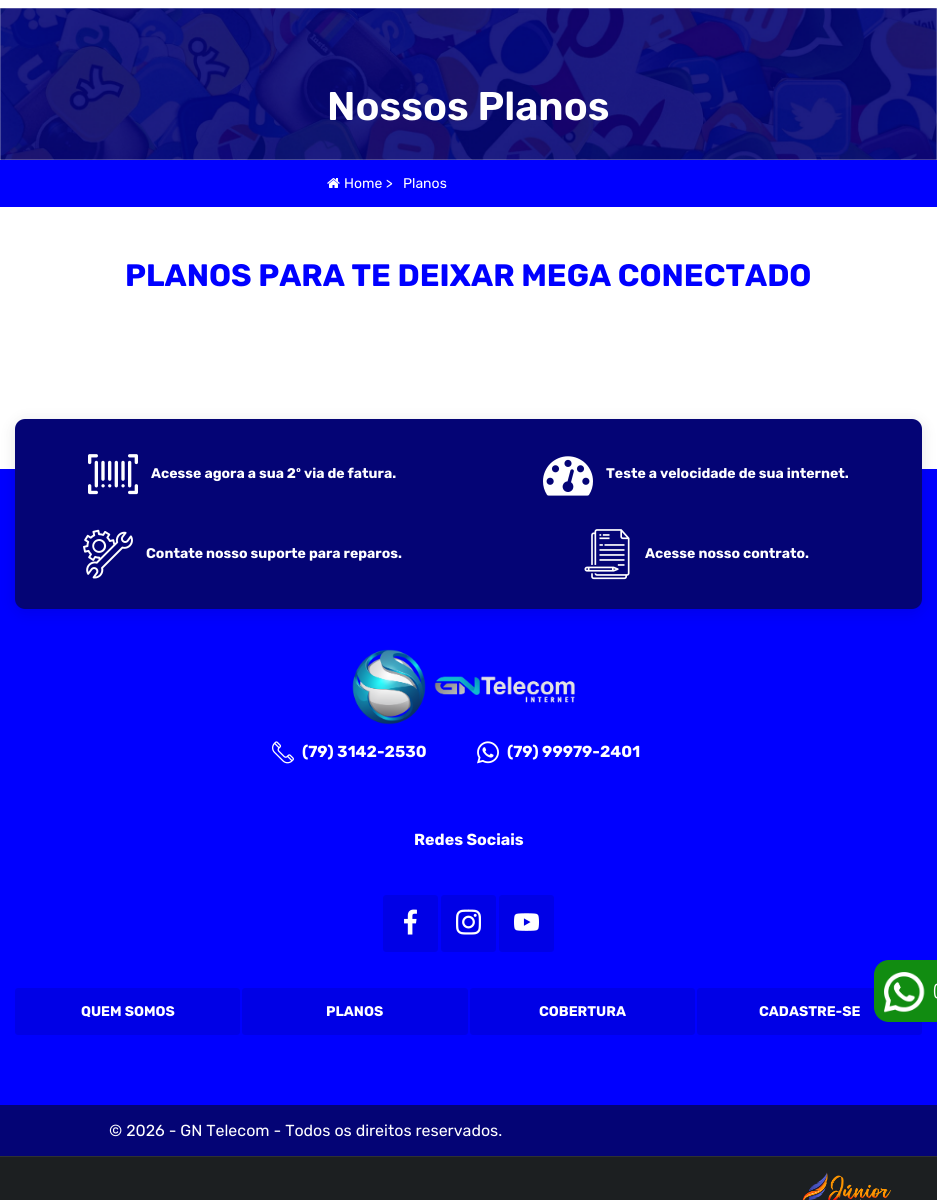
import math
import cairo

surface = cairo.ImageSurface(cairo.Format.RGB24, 937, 1200)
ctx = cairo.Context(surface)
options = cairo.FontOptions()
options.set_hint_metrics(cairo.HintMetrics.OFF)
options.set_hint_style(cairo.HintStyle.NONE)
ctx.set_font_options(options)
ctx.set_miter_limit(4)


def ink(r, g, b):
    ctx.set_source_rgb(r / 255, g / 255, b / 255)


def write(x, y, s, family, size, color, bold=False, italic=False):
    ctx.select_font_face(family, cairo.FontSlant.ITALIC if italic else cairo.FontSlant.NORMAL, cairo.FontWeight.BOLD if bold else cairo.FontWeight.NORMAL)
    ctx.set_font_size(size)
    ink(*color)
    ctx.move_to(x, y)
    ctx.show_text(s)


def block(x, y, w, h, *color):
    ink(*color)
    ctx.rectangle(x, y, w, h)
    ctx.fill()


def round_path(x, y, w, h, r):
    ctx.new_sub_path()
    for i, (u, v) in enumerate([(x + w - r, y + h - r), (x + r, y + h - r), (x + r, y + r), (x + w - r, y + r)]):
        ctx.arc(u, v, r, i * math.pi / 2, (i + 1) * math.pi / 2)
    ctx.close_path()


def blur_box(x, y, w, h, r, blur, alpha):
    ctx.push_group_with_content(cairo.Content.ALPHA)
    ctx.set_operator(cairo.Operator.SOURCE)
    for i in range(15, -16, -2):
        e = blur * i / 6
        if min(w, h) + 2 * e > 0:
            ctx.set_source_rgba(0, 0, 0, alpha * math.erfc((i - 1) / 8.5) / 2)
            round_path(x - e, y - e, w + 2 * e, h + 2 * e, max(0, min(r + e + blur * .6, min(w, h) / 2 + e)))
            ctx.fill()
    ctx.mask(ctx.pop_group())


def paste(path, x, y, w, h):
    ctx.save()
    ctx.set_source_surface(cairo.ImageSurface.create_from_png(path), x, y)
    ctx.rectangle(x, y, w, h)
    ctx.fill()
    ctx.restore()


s1 = dict(family="Rubik SemiBold", size=40, color=(255, 255, 255))
s2 = dict(family="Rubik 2 Light", size=14, color=(255, 255, 255))
s3 = dict(family="Rubik Light", size=31, color=(0, 0, 255))
s4 = dict(family="Rubik Light", size=14, color=(255, 255, 255))
s5 = dict(family="Rubik Light", size=16, color=(255, 255, 255))
s6 = dict(family="Rubik 2 Light", size=16, color=(255, 255, 255))

ink(255, 255, 255)
ctx.paint()
paste("pic1.png", 0, 8, 937, 152)
write(327, 120, "Nossos Planos", **s1)
block(0, 160, 937, 47, 0, 0, 255)
paste("pic2.png", 327, 178, 13, 10)
write(344, 188, "Home >", **s2)
write(403, 188, "Planos", **s2)
write(125, 286, "PLANOS PARA TE DEIXAR MEGA CONECTADO", **s3)
block(0, 469, 937, 636, 0, 0, 255)
ink(0, 0, 0)
blur_box(15, 422, 907, 190, 10, 7.5, 0.1)
ink(4, 4, 117)
round_path(15, 419, 907, 190, 10)
ctx.fill()
paste("pic3.png", 88, 454, 50, 41)
write(151, 478, "Acesse agora a sua 2º via de fatura.", **s4)
paste("pic4.png", 543, 456, 50, 40)
write(606, 478, "Teste a velocidade de sua internet.", **s4)
paste("pic5.png", 83, 529, 50, 50)
write(146, 558, "Contate nosso suporte para reparos.", **s4)
paste("pic6.png", 584, 529, 46, 51)
write(645, 558, "Acesse nosso contrato.", **s4)
paste("pic7.png", 352, 649, 223, 76)
paste("pic8.png", 272, 741, 22, 23)
write(302, 757, "(79) 3142-2530", **s5)
paste("pic9.png", 477, 741, 22, 23)
write(507, 757, "(79) 99979-2401", **s5)
write(414, 845, "Redes Sociais", **s5)
ink(0, 0, 230)
round_path(383, 895, 55, 57, 3)
ctx.fill()
paste("pic10.png", 404, 909, 13, 26)
round_path(441, 895, 55, 57, 3)
ctx.fill()
paste("pic11.png", 456, 909, 25, 26)
round_path(499, 895, 55, 57, 3)
ctx.fill()
paste("pic12.png", 514, 913, 25, 18)
round_path(15, 988, 225, 47, 3)
ctx.fill()
write(81, 1016, "QUEM SOMOS", **s4)
ink(0, 0, 230)
round_path(242, 988, 226, 47, 3)
ctx.fill()
write(326, 1016, "PLANOS", **s4)
ink(0, 0, 230)
round_path(470, 988, 225, 47, 3)
ctx.fill()
write(539, 1016, "COBERTURA", **s4)
ink(0, 0, 230)
round_path(697, 988, 225, 47, 3)
ctx.fill()
write(759, 1016, "CADASTRE-SE", **s4)
ink(17, 140, 17)
ctx.new_path()
ctx.move_to(889, 960)
ctx.line_to(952, 960)
ctx.line_to(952, 1022)
ctx.line_to(889, 1022)
ctx.curve_to(880.5, 1022, 874, 1015.5, 874, 1007)
ctx.line_to(874, 975)
ctx.curve_to(874, 966.5, 880.5, 960, 889, 960)
ctx.close_path()
ctx.fill()
paste("pic13.png", 884, 972, 41, 41)
write(933, 996, "(", **s6)
block(0, 1105, 937, 51, 4, 4, 117)
write(109, 1136, "© 2026 - GN Telecom - Todos os direitos reservados.", **s6)
block(0, 1157, 937, 43, 28, 31, 33)
block(0, 1156, 937, 1, 46, 49, 50)
paste("pic14.png", 802, 1172, 90, 28)
surface.write_to_png("screenshot.png")
